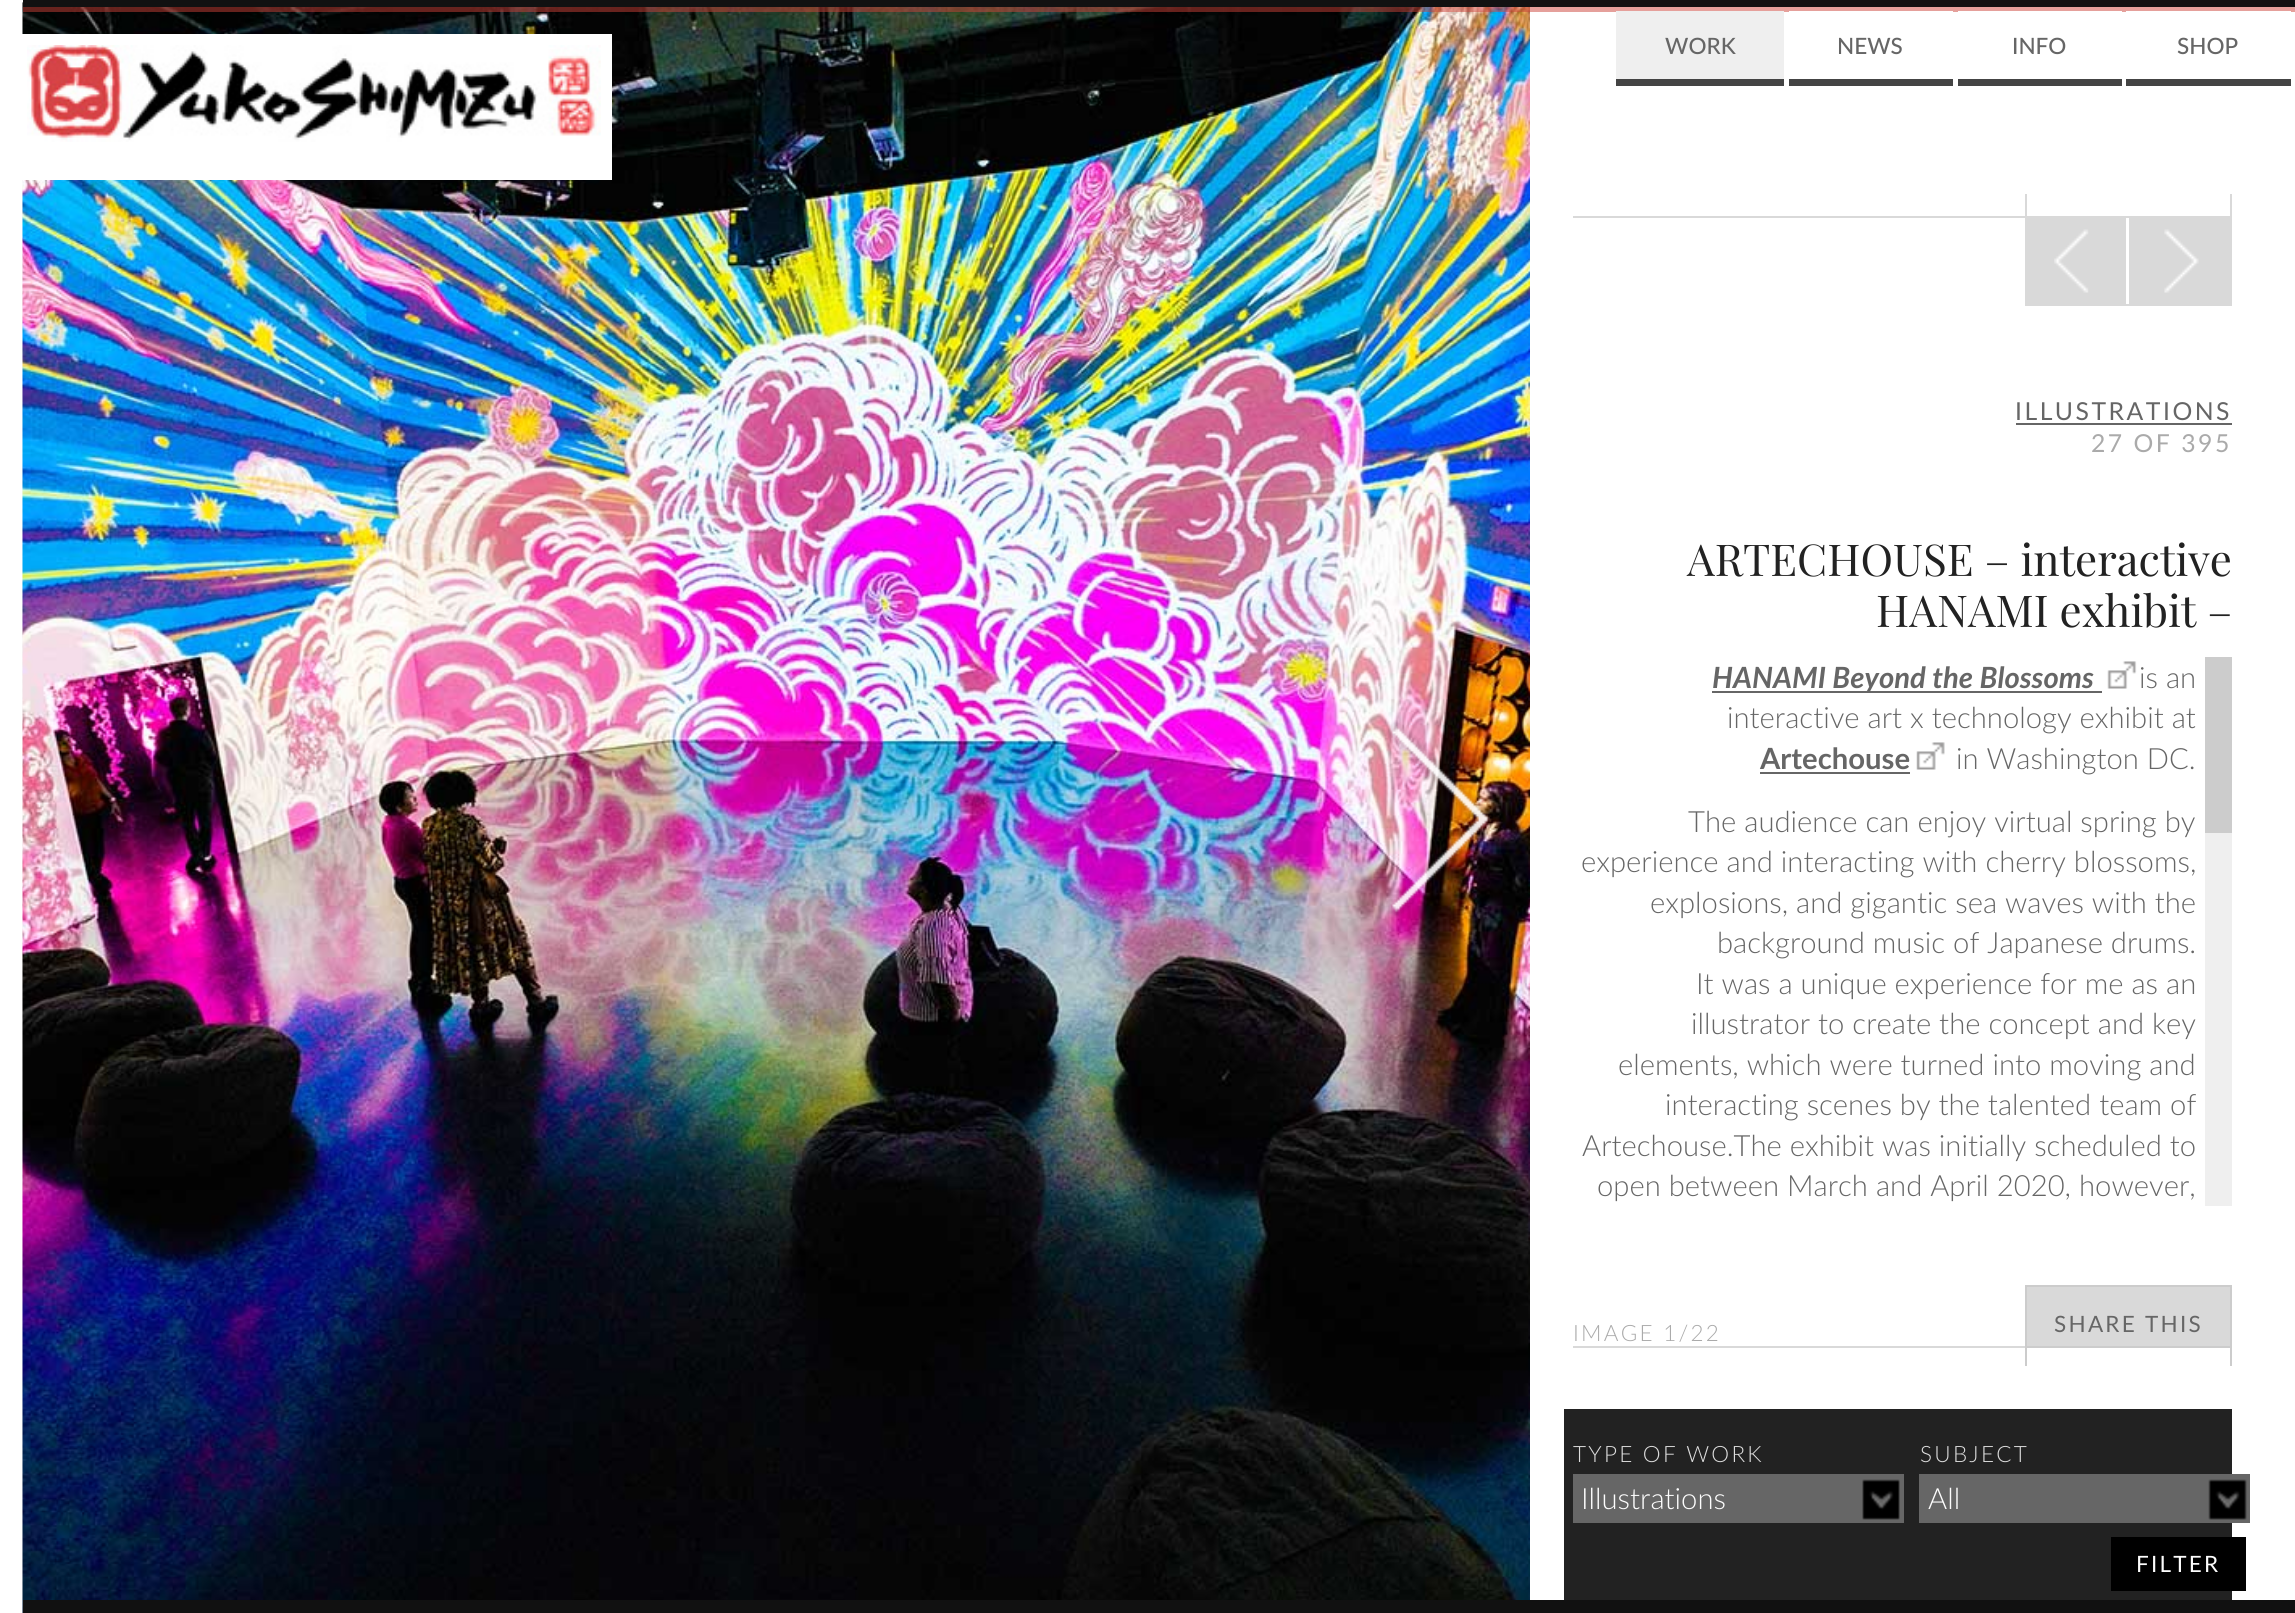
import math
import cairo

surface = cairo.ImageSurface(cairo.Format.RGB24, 2295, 1613)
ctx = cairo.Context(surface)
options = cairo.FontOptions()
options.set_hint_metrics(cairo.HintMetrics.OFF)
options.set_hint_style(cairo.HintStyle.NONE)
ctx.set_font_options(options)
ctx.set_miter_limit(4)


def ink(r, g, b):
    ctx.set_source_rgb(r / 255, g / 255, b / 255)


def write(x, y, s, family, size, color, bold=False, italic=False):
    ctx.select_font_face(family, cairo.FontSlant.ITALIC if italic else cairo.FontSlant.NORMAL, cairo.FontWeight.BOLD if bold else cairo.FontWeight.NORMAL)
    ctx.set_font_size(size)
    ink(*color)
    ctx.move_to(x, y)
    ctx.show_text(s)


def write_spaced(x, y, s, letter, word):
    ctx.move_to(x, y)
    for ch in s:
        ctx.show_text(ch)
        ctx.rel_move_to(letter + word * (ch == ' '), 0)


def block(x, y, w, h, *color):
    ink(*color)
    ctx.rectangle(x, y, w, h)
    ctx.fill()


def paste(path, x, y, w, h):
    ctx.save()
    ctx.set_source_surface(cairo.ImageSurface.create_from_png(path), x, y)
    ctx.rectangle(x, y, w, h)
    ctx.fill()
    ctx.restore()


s1 = dict(family="Lato Medium", size=22.5, color=(102, 102, 102))
s2 = dict(family="Playfair Display", size=43.9, color=(34, 34, 34))
s3 = dict(family="Lato", size=29.25, color=(102, 102, 102), bold=True, italic=True)
s4 = dict(family="Lato Light", size=29.25, color=(102, 102, 102))
s5 = dict(family="Lato", size=29.25, color=(102, 102, 102), bold=True)
s6 = dict(family="Lato Light", size=29.25, color=(253, 253, 253))

ink(255, 255, 255)
ctx.paint()
paste("pic2.png", 22, 2, 1, 1611)
paste("pic3.png", 22, 2, 1508, 1611)
block(23, 0, 2272, 7, 17, 17, 17)
ctx.set_source_rgba(0.8, 0.263, 0.224, 0.5)
ctx.rectangle(23, 7, 2272, 5)
ctx.fill()
block(22, 34, 590, 146, 255, 255, 255)
paste("pic1.png", 27, 45, 574, 97)
block(1616, 11, 168, 68, 239, 239, 239)
block(1616, 79, 168, 7, 68, 68, 68)
write(1665, 54, "WORK", **s1)
block(1789, 79, 164, 7, 68, 68, 68)
block(1789, 11, 164, 1, 255, 255, 255)
write(1837, 54, "NEWS", **s1)
block(1958, 79, 164, 7, 68, 68, 68)
block(1958, 11, 164, 1, 255, 255, 255)
write(2012, 54, "INFO", **s1)
block(2126, 79, 165, 7, 68, 68, 68)
block(2126, 11, 165, 1, 255, 255, 255)
write(2177, 54, "SHOP", **s1)
paste("pic4.png", 1386, 720, 106, 198)
block(1573, 216, 452, 2, 217, 217, 217)
block(2230, 194, 2, 112, 217, 217, 217)
block(2025, 216, 207, 2, 217, 217, 217)
block(2025, 194, 2, 24, 217, 217, 217)
block(2025, 304, 207, 2, 217, 217, 217)
block(2025, 218, 2, 88, 217, 217, 217)
block(2027, 218, 99, 86, 217, 217, 217)
paste("pic5.png", 2054, 229, 35, 64)
block(2129, 218, 101, 86, 217, 217, 217)
paste("pic6.png", 2164, 229, 35, 64)
ctx.select_font_face("Lato")
ctx.set_font_size(24.75)
ink(102, 102, 102)
write_spaced(2015, 420, "ILLUSTRATIONS", 2.5, 0)
block(2016, 423, 216, 2, 102, 102, 102)
ink(170, 170, 170)
write_spaced(2091, 452, "27 OF 395", 2.5, 0)
write(1687, 576, "ARTECHOUSE – interactive", **s2)
write(1876, 627, "HANAMI exhibit –", **s2)
block(1712, 691, 381, 2, 102, 102, 102)
write(1712, 688, "HANAMI Beyond the Blossoms", **s3)
block(2093, 691, 9, 2, 102, 102, 102)
paste("pic7.png", 2107, 661, 30, 28)
write(2139, 688, "is an", **s4)
write(1727, 728, "interactive art x technology exhibit at", **s4)
write(1760, 769, "Artechouse", **s5)
block(1760, 772, 150, 2, 102, 102, 102)
paste("pic8.png", 1916, 742, 29, 28)
write(1956, 769, "in Washington DC.", **s4)
write(1688, 832, "The audience can enjoy virtual spring by", **s4)
write(1581, 872, "experience and interacting with cherry blossoms,", **s4)
write(1650, 913, "explosions, and gigantic sea waves with the", **s4)
write(1717, 953, "background music of Japanese drums.", **s4)
write(1696, 994, "It was a unique experience for me as an", **s4)
write(1691, 1034, "illustrator to create the concept and key", **s4)
write(1618, 1075, "elements, which were turned into moving and", **s4)
write(1665, 1115, "interacting scenes by the talented team of", **s4)
write(1582, 1156, "Artechouse.The exhibit was initially scheduled to", **s4)
write(1597, 1196, "open between March and April 2020, however,", **s4)
block(2205, 833, 27, 373, 239, 239, 239)
block(2205, 657, 27, 176, 204, 204, 204)
ctx.set_font_size(22.5)
ink(170, 170, 170)
write_spaced(1573, 1341, "IMAGE 1/22", 2.25, 0)
block(2025, 1285, 207, 2, 204, 204, 204)
block(2230, 1285, 2, 61, 204, 204, 204)
block(2025, 1285, 2, 61, 204, 204, 204)
block(2027, 1287, 203, 59, 217, 217, 217)
ctx.select_font_face("Lato")
ink(102, 102, 102)
write_spaced(2054, 1332, "SHARE THIS", 2.25, 0)
block(1573, 1346, 452, 2, 217, 217, 217)
block(2025, 1346, 207, 2, 204, 204, 204)
block(2230, 1346, 2, 24, 204, 204, 204)
block(2025, 1346, 2, 24, 204, 204, 204)
block(2025, 1366, 207, 4, 255, 255, 255)
block(1564, 1409, 668, 191, 34, 34, 34)
ctx.select_font_face("Lato Light")
ink(221, 221, 221)
write_spaced(1573, 1462, "TYPE OF WORK", 2.25, 0)
block(1573, 1474, 331, 49, 102, 102, 102)
paste("pic9.png", 1862, 1479, 38, 41)
write(1581, 1509, "Illustrations", **s6)
ctx.set_font_size(22.5)
ink(221, 221, 221)
write_spaced(1920, 1462, "SUBJECT", 2.25, 0)
block(1919, 1474, 331, 49, 102, 102, 102)
paste("pic10.png", 2208, 1479, 39, 41)
write(1928, 1509, "All", **s6)
block(2111, 1537, 135, 54, 0, 0, 0)
ctx.select_font_face("Lato")
ctx.set_font_size(22.5)
ink(253, 253, 253)
write_spaced(2136, 1572, "FILTER", 2.25, 0)
block(23, 1600, 2272, 13, 17, 17, 17)
surface.write_to_png("screenshot.png")
